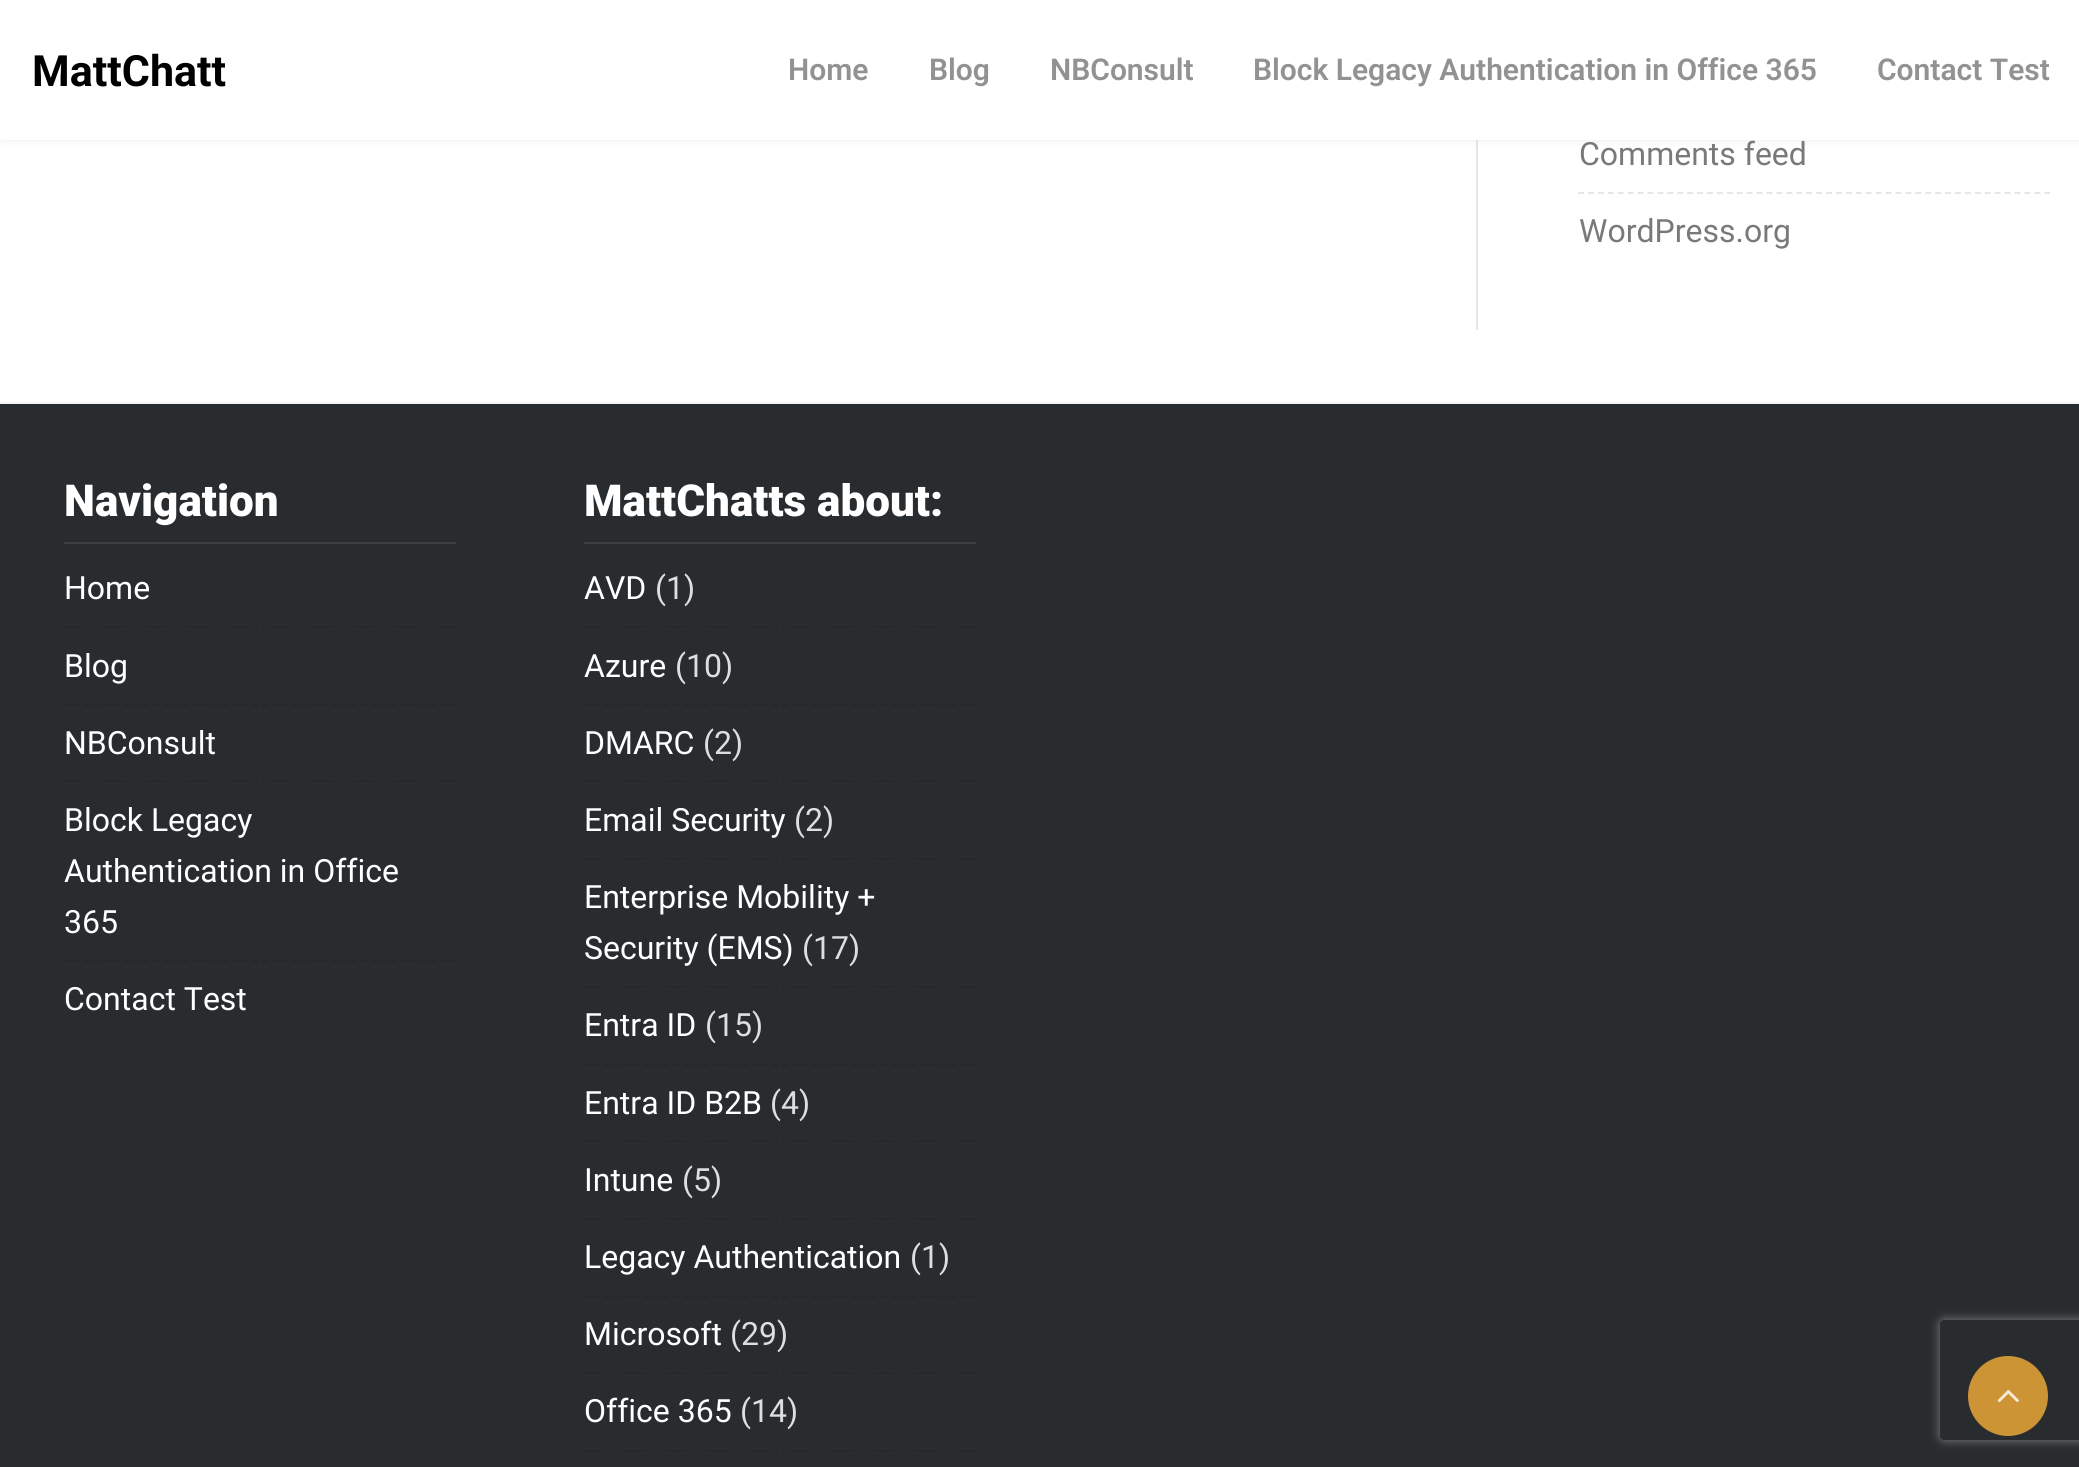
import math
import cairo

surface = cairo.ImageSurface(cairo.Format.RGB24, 2079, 1467)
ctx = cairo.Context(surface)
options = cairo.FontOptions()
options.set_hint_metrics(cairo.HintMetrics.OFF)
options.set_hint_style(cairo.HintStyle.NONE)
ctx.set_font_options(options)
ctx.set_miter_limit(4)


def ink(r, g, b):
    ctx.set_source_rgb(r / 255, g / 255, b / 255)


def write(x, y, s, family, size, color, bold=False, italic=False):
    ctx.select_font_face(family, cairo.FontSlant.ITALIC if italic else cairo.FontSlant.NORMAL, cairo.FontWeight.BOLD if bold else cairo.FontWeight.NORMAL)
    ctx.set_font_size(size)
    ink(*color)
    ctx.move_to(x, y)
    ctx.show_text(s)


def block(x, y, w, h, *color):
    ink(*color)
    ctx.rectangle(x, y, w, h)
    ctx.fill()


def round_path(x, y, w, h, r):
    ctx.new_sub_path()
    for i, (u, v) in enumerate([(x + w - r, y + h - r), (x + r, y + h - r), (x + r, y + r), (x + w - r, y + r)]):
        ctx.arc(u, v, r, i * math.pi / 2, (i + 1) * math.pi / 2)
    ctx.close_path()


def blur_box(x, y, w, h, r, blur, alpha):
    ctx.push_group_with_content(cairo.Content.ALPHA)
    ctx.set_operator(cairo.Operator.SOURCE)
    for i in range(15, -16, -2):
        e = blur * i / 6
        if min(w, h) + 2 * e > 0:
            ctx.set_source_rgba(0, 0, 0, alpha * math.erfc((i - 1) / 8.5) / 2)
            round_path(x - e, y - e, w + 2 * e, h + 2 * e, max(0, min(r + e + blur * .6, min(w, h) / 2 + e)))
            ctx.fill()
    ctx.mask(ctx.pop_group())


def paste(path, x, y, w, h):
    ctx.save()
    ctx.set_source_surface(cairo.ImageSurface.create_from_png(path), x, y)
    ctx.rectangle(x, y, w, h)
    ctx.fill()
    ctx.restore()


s1 = dict(family="Roboto", size=43, color=(0, 0, 0), bold=True)
s2 = dict(family="Roboto SemiBold", size=30, color=(146, 146, 146))
s3 = dict(family="Roboto", size=32, color=(121, 121, 121))
s4 = dict(family="Roboto Black", size=44, color=(255, 255, 255))
s5 = dict(family="Roboto", size=32, color=(255, 255, 255))
s6 = dict(family="Roboto", size=32, color=(222, 222, 222))

ink(255, 255, 255)
ctx.paint()
block(1476, 140, 2, 190, 230, 230, 230)
ink(190, 190, 190)
blur_box(0, 2, 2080, 140, 0, 3, 0.2)
block(0, 0, 2079, 140, 255, 255, 255)
write(32, 86, "MattChatt", **s1)
write(788, 80, "Home", **s2)
write(929, 80, "Blog", **s2)
write(1050, 80, "NBConsult", **s2)
write(1253, 80, "Block Legacy Authentication in Office 365", **s2)
write(1877, 80, "Contact Test", **s2)
ctx.new_path()
ctx.move_to(1578, 193)
ctx.line_to(2050, 193)
ink(230, 230, 230)
ctx.set_dash([6, 3.92])
ctx.stroke()
write(1579, 165, "Comments feed", **s3)
write(1579, 242, "WordPress.org", **s3)
ink(0, 0, 0)
blur_box(0, 404, 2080, 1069, 0, 2, 0.15)
block(0, 404, 2079, 1063, 40, 44, 47)
block(64, 542, 392, 2, 59, 63, 66)
write(64, 516, "Navigation", **s4)
ctx.new_path()
ctx.move_to(64, 627)
ctx.line_to(456, 627)
ink(36, 40, 42)
ctx.set_dash([6, 3.9])
ctx.stroke()
write(64, 599, "Home", **s5)
ctx.new_path()
ctx.move_to(64, 705)
ctx.line_to(456, 705)
ink(36, 40, 42)
ctx.stroke()
write(64, 677, "Blog", **s5)
ctx.new_path()
ctx.move_to(64, 781)
ctx.line_to(456, 781)
ink(36, 40, 42)
ctx.stroke()
write(64, 754, "NBConsult", **s5)
ctx.new_path()
ctx.move_to(64, 961)
ctx.line_to(456, 961)
ink(36, 40, 42)
ctx.stroke()
write(64, 831, "Block Legacy", **s5)
write(64, 882, "Authentication in Office", **s5)
write(64, 933, "365", **s5)
write(64, 1010, "Contact Test", **s5)
block(584, 542, 392, 2, 59, 63, 66)
write(584, 516, "MattChatts about:", **s4)
ctx.new_path()
ctx.move_to(584, 627)
ctx.line_to(976, 627)
ink(36, 40, 42)
ctx.stroke()
write(584, 599, "AVD", **s5)
write(655, 599, "(1)", **s6)
ctx.new_path()
ctx.move_to(584, 705)
ctx.line_to(976, 705)
ink(36, 40, 42)
ctx.stroke()
write(584, 677, "Azure", **s5)
write(675, 677, "(10)", **s6)
ctx.new_path()
ctx.move_to(584, 781)
ctx.line_to(976, 781)
ink(36, 40, 42)
ctx.stroke()
write(584, 754, "DMARC", **s5)
write(703, 754, "(2)", **s6)
ctx.new_path()
ctx.move_to(584, 859)
ctx.line_to(976, 859)
ink(36, 40, 42)
ctx.stroke()
write(584, 831, "Email Security", **s5)
write(794, 831, "(2)", **s6)
ctx.new_path()
ctx.move_to(584, 987)
ctx.line_to(976, 987)
ink(36, 40, 42)
ctx.stroke()
write(584, 908, "Enterprise Mobility +", **s5)
write(584, 959, "Security (EMS)", **s5)
write(802, 959, "(17)", **s6)
ctx.new_path()
ctx.move_to(584, 1065)
ctx.line_to(976, 1065)
ink(36, 40, 42)
ctx.stroke()
write(584, 1036, "Entra ID", **s5)
write(705, 1036, "(15)", **s6)
ctx.new_path()
ctx.move_to(584, 1141)
ctx.line_to(976, 1141)
ink(36, 40, 42)
ctx.stroke()
write(584, 1114, "Entra ID B2B", **s5)
write(770, 1114, "(4)", **s6)
ctx.new_path()
ctx.move_to(584, 1219)
ctx.line_to(976, 1219)
ink(36, 40, 42)
ctx.stroke()
write(584, 1191, "Intune", **s5)
write(682, 1191, "(5)", **s6)
ctx.new_path()
ctx.move_to(584, 1297)
ctx.line_to(976, 1297)
ink(36, 40, 42)
ctx.stroke()
write(584, 1268, "Legacy Authentication", **s5)
write(910, 1268, "(1)", **s6)
ctx.new_path()
ctx.move_to(584, 1373)
ctx.line_to(976, 1373)
ink(36, 40, 42)
ctx.stroke()
write(584, 1345, "Microsoft", **s5)
write(730, 1345, "(29)", **s6)
ctx.new_path()
ctx.move_to(584, 1451)
ctx.line_to(976, 1451)
ink(36, 40, 42)
ctx.stroke()
write(584, 1422, "Office 365", **s5)
write(740, 1422, "(14)", **s6)
ctx.save()
ctx.set_fill_rule(cairo.FillRule.EVEN_ODD)
ctx.new_path()
ctx.move_to(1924, 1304)
ctx.line_to(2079, 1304)
ctx.line_to(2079, 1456)
ctx.line_to(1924, 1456)
ctx.close_path()
ctx.move_to(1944, 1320)
ctx.line_to(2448, 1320)
ctx.curve_to(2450, 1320, 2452, 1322, 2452, 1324)
ctx.line_to(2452, 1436)
ctx.curve_to(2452, 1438, 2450, 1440, 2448, 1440)
ctx.line_to(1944, 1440)
ctx.curve_to(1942, 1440, 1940, 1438, 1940, 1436)
ctx.line_to(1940, 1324)
ctx.curve_to(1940, 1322, 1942, 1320, 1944, 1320)
ctx.close_path()
ctx.clip()
ink(128, 128, 128)
blur_box(1940, 1320, 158, 120, 4, 5, 1)
ctx.restore()
ink(205, 148, 54)
ctx.arc(2008, 1396, 40, 0, 2 * math.pi)
ctx.fill()
paste("pic1.png", 1997, 1389, 22, 14)
surface.write_to_png("screenshot.png")
